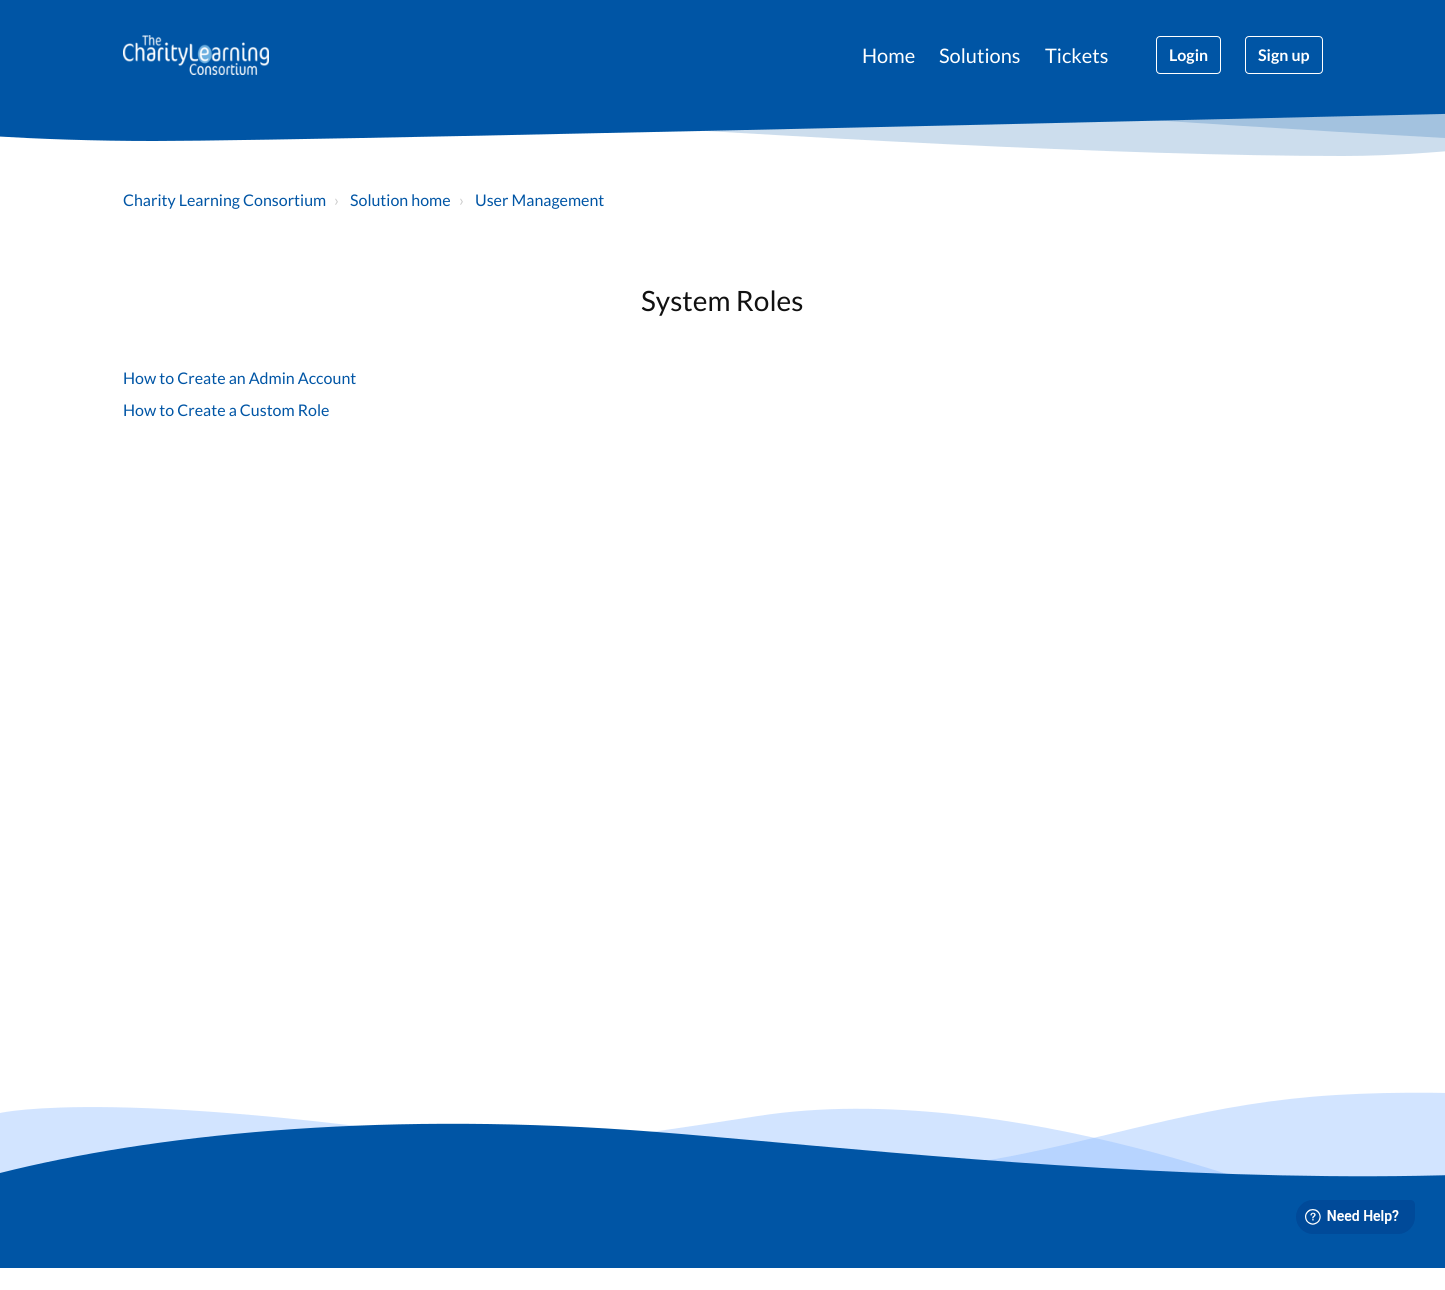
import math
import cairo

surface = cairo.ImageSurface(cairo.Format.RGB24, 1445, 1290)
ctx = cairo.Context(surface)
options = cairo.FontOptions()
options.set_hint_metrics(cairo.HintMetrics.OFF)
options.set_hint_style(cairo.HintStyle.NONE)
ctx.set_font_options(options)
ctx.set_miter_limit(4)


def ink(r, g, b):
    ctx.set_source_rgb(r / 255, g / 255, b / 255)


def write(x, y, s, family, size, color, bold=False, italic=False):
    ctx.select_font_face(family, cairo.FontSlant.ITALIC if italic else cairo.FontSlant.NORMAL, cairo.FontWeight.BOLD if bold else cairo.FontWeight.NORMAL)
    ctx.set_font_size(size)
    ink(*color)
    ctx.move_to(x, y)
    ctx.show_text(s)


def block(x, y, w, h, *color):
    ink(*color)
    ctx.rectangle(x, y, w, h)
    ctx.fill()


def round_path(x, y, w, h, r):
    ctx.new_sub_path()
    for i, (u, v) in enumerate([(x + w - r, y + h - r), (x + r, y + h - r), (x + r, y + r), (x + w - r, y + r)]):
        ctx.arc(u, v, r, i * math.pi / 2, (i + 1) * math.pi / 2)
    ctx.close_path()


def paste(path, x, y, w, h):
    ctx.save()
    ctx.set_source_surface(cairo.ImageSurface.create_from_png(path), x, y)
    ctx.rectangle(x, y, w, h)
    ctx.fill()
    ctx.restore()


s1 = dict(family="Lato", size=20, color=(255, 255, 255))
s2 = dict(family="Lato", size=16, color=(255, 255, 255), bold=True)
s3 = dict(family="Lato", size=16, color=(0, 85, 165))
s4 = dict(family="Lato", size=16, color=(204, 204, 204))
s5 = dict(family="Lato", size=28, color=(17, 17, 17))

ink(255, 255, 255)
ctx.paint()
block(0, 0, 1445, 109, 0, 85, 165)
paste("pic1.png", 123, 35, 146, 40)
write(862, 63, "Home", **s1)
write(939, 63, "Solutions", **s1)
write(1045, 63, "Tickets", **s1)
round_path(1156.5, 36.5, 64, 37, 3.5)
ctx.set_line_width(1)
ctx.stroke()
write(1169, 61, "Login", **s2)
round_path(1245.5, 36.5, 77, 37, 3.5)
ctx.stroke()
write(1258, 61, "Sign up", **s2)
ink(0, 85, 165)
ctx.new_path()
ctx.move_to(154, 141)
ctx.curve_to(333, 141, 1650, 109, 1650, 109)
ctx.line_to(-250, 109)
ctx.curve_to(-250, 109, -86, 141, 154, 141)
ctx.close_path()
ctx.fill()
ctx.save()
ctx.rectangle(0, 109, 1445, 47)
ctx.clip()
ctx.set_source_rgba(0, 0.333, 0.647, 0.2)
ctx.new_path()
ctx.move_to(1343, 156)
ctx.curve_to(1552, 156, 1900, 80, 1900, 80)
ctx.line_to(0, 80)
ctx.curve_to(0, 80, 897, 156, 1343, 156)
ctx.close_path()
ctx.fill()
ctx.new_path()
ctx.move_to(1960, 156)
ctx.curve_to(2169, 156, 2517, 80, 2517, 80)
ctx.line_to(617, 80)
ctx.curve_to(617, 80, 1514, 156, 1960, 156)
ctx.close_path()
ctx.fill()
ctx.restore()
write(123, 206, "Charity Learning Consortium", **s3)
write(334, 206, "›", **s4)
write(350, 206, "Solution home", **s3)
write(459, 206, "›", **s4)
write(475, 206, "User Management", **s3)
write(641, 311, "System Roles", **s5)
write(123, 384, "How to Create an Admin Account", **s3)
write(123, 416, "How to Create a Custom Role", **s3)
block(0, 1192, 1445, 76, 0, 85, 165)
ctx.save()
ctx.rectangle(0, 1092, 1445, 100)
ctx.clip()
ctx.set_source_rgba(0.565, 0.741, 1, 0.4)
ctx.new_path()
ctx.move_to(-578, 1166)
ctx.curve_to(-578, 1166, -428, 1204, -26, 1186)
ctx.curve_to(377, 1168, 507, 1155, 758, 1116)
ctx.curve_to(1009, 1077, 1322, 1208, 1322, 1208)
ctx.line_to(1322, 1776)
ctx.line_to(-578, 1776)
ctx.close_path()
ctx.fill()
ctx.new_path()
ctx.move_to(0, 1113)
ctx.curve_to(0, 1113, 122, 1084, 552, 1154)
ctx.curve_to(983, 1223, 1085, 1110, 1336, 1095)
ctx.curve_to(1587, 1080, 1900, 1143, 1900, 1143)
ctx.line_to(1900, 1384)
ctx.line_to(0, 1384)
ctx.close_path()
ctx.fill()
ink(0, 85, 165)
ctx.new_path()
ctx.move_to(0, 1173)
ctx.curve_to(151, 1135, 370, 1112, 630, 1130)
ctx.curve_to(890, 1148, 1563, 1239, 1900, 1102)
ctx.line_to(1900, 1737)
ctx.line_to(0, 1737)
ctx.close_path()
ctx.fill()
ctx.restore()
paste("pic2.png", 1296, 1200, 119, 34)
surface.write_to_png("screenshot.png")
